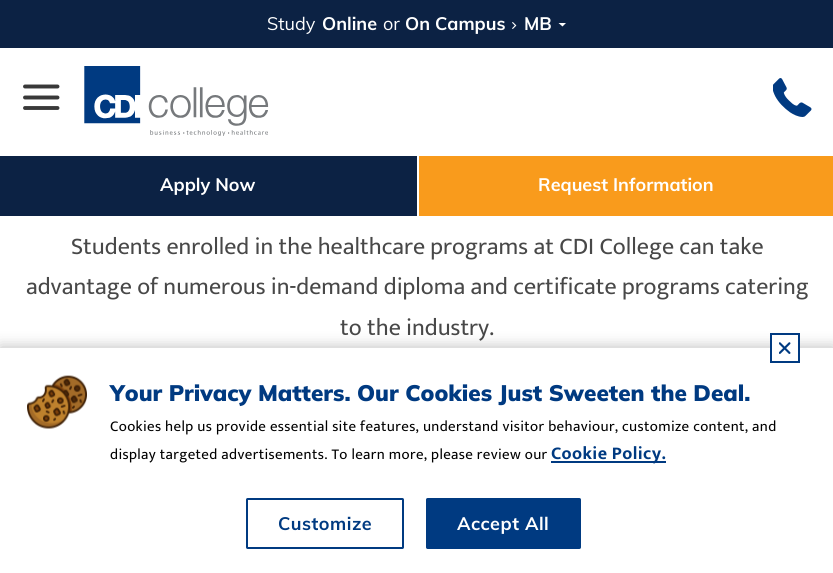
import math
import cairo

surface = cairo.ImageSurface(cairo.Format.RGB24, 833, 573)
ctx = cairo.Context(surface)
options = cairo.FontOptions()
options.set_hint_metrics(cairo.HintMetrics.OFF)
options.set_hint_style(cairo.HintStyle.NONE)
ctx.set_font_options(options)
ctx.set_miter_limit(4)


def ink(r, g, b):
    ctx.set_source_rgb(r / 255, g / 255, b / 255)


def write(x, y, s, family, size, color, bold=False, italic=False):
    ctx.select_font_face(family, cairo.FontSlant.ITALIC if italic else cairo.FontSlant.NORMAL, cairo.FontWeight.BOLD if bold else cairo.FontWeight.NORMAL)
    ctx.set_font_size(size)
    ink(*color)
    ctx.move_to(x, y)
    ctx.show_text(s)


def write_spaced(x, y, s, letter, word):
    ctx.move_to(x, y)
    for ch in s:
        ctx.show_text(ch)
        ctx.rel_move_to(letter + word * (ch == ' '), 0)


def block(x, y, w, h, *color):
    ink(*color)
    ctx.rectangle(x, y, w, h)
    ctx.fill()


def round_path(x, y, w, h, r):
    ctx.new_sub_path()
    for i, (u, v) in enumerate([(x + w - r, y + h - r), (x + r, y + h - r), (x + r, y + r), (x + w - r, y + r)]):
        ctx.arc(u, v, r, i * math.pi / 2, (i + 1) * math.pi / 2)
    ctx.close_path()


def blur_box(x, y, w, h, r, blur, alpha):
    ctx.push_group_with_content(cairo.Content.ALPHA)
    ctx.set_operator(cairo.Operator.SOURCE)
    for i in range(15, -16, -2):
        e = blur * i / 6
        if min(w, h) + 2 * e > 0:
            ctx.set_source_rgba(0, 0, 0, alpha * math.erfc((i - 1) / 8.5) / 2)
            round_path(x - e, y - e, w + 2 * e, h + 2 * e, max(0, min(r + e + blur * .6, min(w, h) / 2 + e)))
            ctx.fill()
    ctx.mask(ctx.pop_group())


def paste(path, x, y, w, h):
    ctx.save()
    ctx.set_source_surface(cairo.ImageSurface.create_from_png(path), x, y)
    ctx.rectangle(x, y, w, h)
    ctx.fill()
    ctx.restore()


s1 = dict(family="Mulish", size=18, color=(255, 255, 255))
s2 = dict(family="Mulish", size=18, color=(255, 255, 255), bold=True)
s3 = dict(family="Mukta Vaani", size=24, color=(72, 72, 72))
s4 = dict(family="Mulish Black", size=22.5, color=(0, 58, 129))

ink(255, 255, 255)
ctx.paint()
block(0, 0, 833, 48, 12, 34, 68)
write(267, 30, "Study", **s1)
write(322, 30, "Online", **s2)
write(383, 30, "or", **s1)
write(405, 30, "On Campus", **s2)
paste("pic1.png", 512, 22, 5, 7)
write(524, 30, "MB", **s2)
ctx.new_path()
ctx.move_to(558.5, 23)
ctx.line_to(562.5, 26.5)
ctx.line_to(566, 23)
ctx.close_path()
ctx.fill()
ctx.new_path()
ctx.move_to(25, 86.5)
ctx.line_to(57.5, 86.5)
ctx.move_to(25, 97.5)
ctx.line_to(57.5, 97.5)
ctx.move_to(25, 108)
ctx.line_to(57.5, 108)
ink(57, 57, 57)
ctx.set_line_width(3.9)
ctx.set_line_cap(cairo.LineCap.ROUND)
ctx.set_line_join(cairo.LineJoin.ROUND)
ctx.stroke()
paste("pic2.png", 84, 66, 185, 70)
paste("pic3.png", 773, 78, 39, 39)
block(0, 156, 417, 60, 12, 34, 68)
write(160, 191, "Apply Now", **s2)
block(419, 156, 414, 60, 249, 155, 28)
write(538, 191, "Request Information", **s2)
write(71, 254, "Students enrolled in the healthcare programs at CDI College can take", **s3)
write(26, 294, "advantage of numerous in-demand diploma and certificate programs catering", **s3)
write(340, 335, "to the industry.", **s3)
ink(0, 0, 0)
blur_box(0, 347, 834, 225, 0, 7.5, 0.25)
block(0, 348, 833, 225, 255, 255, 255)
block(772, 335, 26, 13, 255, 255, 255)
ctx.rectangle(771, 334, 28, 28)
ink(0, 58, 129)
ctx.set_line_width(2)
ctx.set_line_cap(cairo.LineCap.BUTT)
ctx.set_line_join(cairo.LineJoin.MITER)
ctx.stroke()
paste("pic4.png", 779, 342, 12, 12)
paste("pic5.png", 27, 375, 60, 54)
write(110, 401, "Your Privacy Matters. Our Cookies Just Sweeten the Deal.", **s4)
ctx.select_font_face("Mukta Vaani")
ctx.set_font_size(15)
ink(0, 0, 0)
write_spaced(110, 431, "Cookies help us provide essential site features, understand visitor behaviour, customize content, and", 0.36, 0)
write_spaced(110, 459, "display targeted advertisements. To learn more, please review our", 0.36, 0)
block(551, 461, 115, 2, 0, 58, 129)
ctx.select_font_face("Mukta Vaani", cairo.FontSlant.NORMAL, cairo.FontWeight.BOLD)
ctx.set_font_size(18)
write_spaced(551, 459, "Cookie Policy.", 0.36, 0)
round_path(247, 499, 156, 49, 0.5)
ctx.stroke()
ctx.select_font_face("Mulish", cairo.FontSlant.NORMAL, cairo.FontWeight.BOLD)
write_spaced(278, 530, "Customize", 0.5, 0)
round_path(427, 499, 153, 49, 0.5)
ctx.fill_preserve()
ctx.stroke()
ink(255, 255, 255)
write_spaced(457, 530, "Accept All", 0.5, 0)
surface.write_to_png("screenshot.png")
